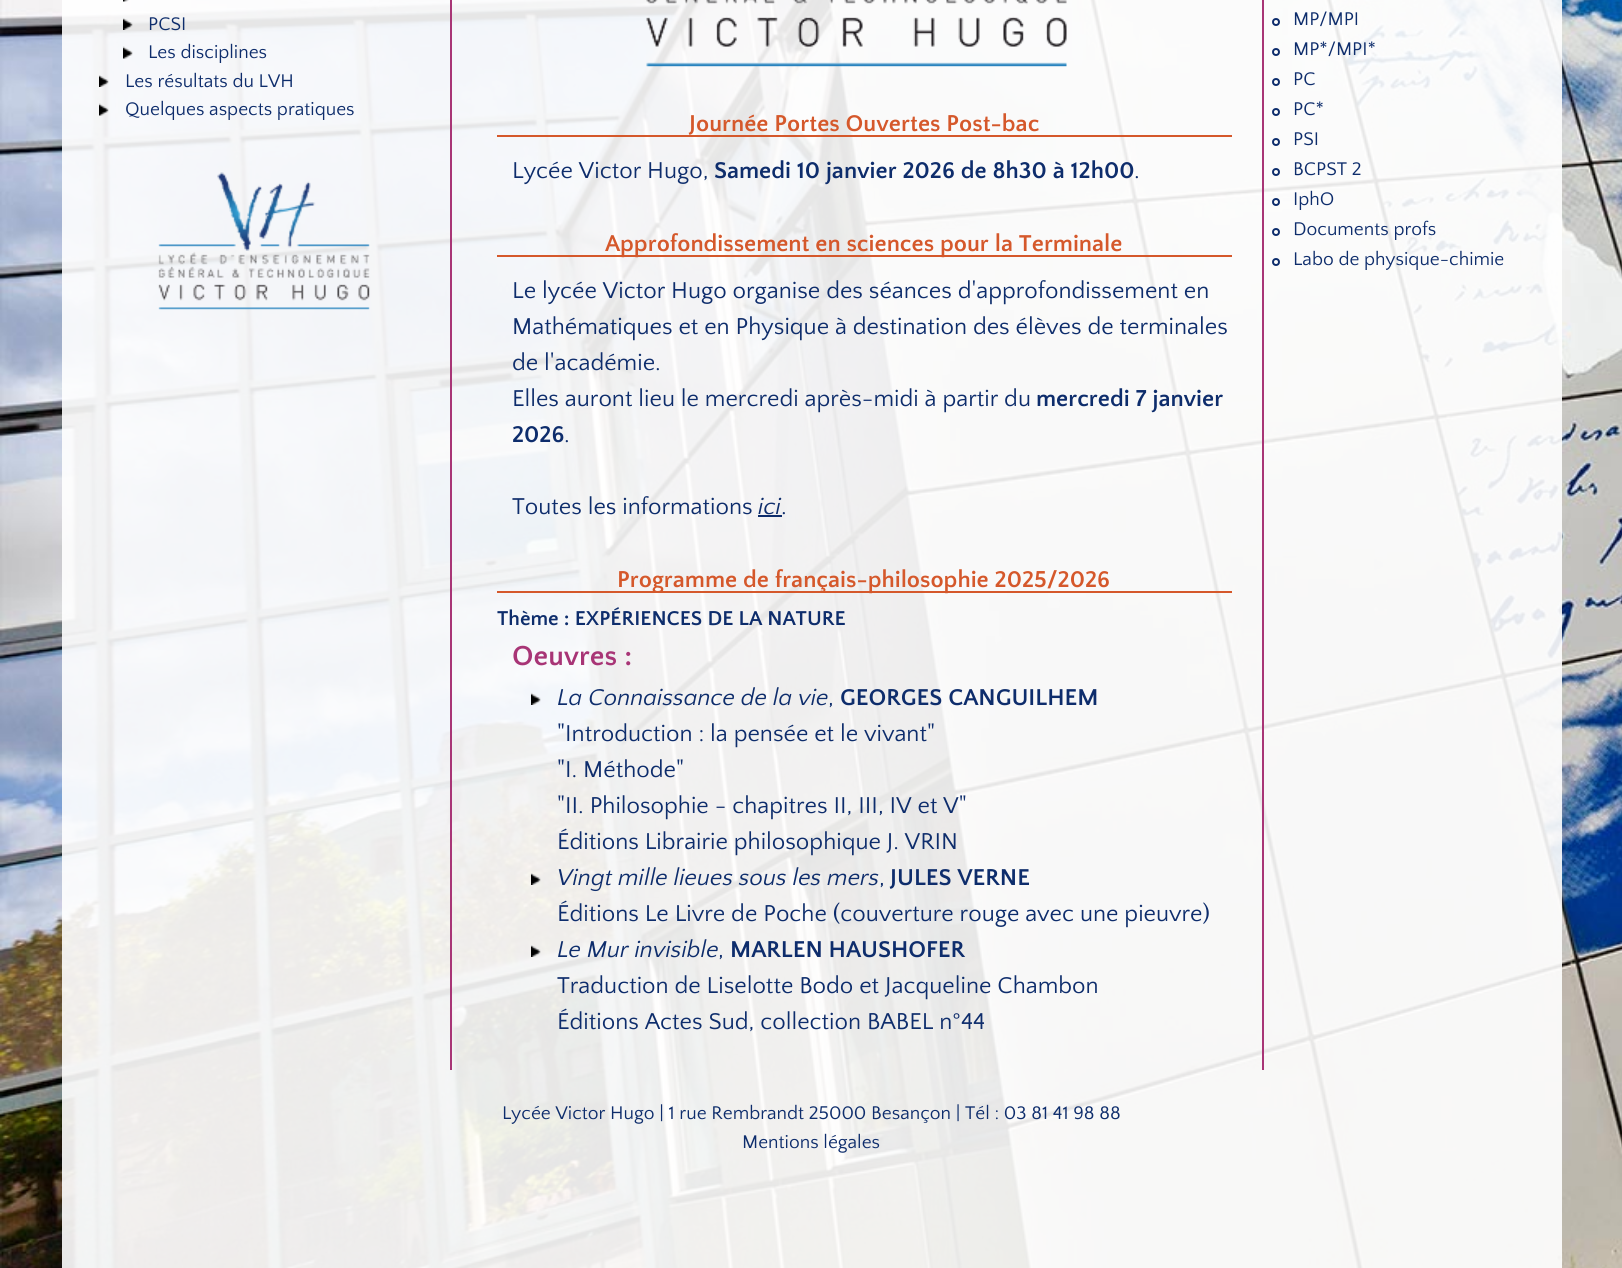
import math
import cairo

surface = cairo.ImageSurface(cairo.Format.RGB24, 1622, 1268)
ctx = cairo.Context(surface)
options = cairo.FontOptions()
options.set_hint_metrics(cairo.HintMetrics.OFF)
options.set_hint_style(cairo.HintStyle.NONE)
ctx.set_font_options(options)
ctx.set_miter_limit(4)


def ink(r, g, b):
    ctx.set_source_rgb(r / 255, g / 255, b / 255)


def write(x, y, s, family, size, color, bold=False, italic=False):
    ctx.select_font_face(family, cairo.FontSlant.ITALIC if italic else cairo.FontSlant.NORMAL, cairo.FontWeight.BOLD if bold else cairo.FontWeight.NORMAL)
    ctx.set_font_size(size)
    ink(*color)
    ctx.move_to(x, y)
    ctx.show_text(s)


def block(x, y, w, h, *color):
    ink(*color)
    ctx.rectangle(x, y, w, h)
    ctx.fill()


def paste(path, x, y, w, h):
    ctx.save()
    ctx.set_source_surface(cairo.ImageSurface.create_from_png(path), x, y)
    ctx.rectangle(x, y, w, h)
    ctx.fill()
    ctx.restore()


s1 = dict(family="Quattrocento Sans", size=19.2, color=(14, 45, 108))
s2 = dict(family="Quattrocento Sans", size=24, color=(213, 88, 43), bold=True)
s3 = dict(family="Quattrocento Sans", size=24, color=(14, 45, 108))
s4 = dict(family="Quattrocento Sans", size=24, color=(14, 45, 108), bold=True)
s5 = dict(family="Quattrocento Sans", size=24, color=(14, 45, 108), italic=True)
s6 = dict(family="Quattrocento Sans", size=21, color=(14, 45, 108), bold=True)
s7 = dict(family="Quattrocento Sans", size=29, color=(168, 53, 118), bold=True)

ink(255, 255, 255)
ctx.paint()
paste("pic1.png", 0, 0, 1622, 1268)
block(450, 0, 2, 1070, 168, 53, 118)
paste("pic2.png", 123, 0, 6, 2)
paste("pic3.png", 123, 18, 10, 12)
write(148, 30, "PCSI", **s1)
paste("pic4.png", 123, 46, 10, 13)
write(148, 58, "Les disciplines", **s1)
paste("pic5.png", 99, 75, 10, 12)
write(125, 87, "Les résultats du LVH", **s1)
paste("pic6.png", 99, 103, 10, 13)
write(125, 115, "Quelques aspects pratiques", **s1)
paste("pic7.png", 158, 172, 212, 138)
block(1262, 0, 2, 1070, 168, 53, 118)
ctx.arc(1276, 22, 3, 0, 2 * math.pi)
ink(14, 45, 108)
ctx.stroke()
write(1293, 25, "MP/MPI", **s1)
ctx.new_path()
ctx.arc(1276, 52, 3, 0, 2 * math.pi)
ctx.stroke()
write(1293, 55, "MP*/MPI*", **s1)
ctx.new_path()
ctx.arc(1276, 82, 3, 0, 2 * math.pi)
ctx.stroke()
write(1293, 85, "PC", **s1)
ctx.new_path()
ctx.arc(1276, 112, 3, 0, 2 * math.pi)
ctx.stroke()
write(1293, 115, "PC*", **s1)
ctx.new_path()
ctx.arc(1276, 142, 3, 0, 2 * math.pi)
ctx.stroke()
write(1293, 145, "PSI", **s1)
ctx.new_path()
ctx.arc(1276, 172, 3, 0, 2 * math.pi)
ctx.stroke()
write(1293, 175, "BCPST 2", **s1)
ctx.new_path()
ctx.arc(1276, 202, 3, 0, 2 * math.pi)
ctx.stroke()
write(1293, 205, "IphO", **s1)
ctx.new_path()
ctx.arc(1276, 232, 3, 0, 2 * math.pi)
ctx.stroke()
write(1293, 235, "Documents profs", **s1)
ctx.new_path()
ctx.arc(1276, 262, 3, 0, 2 * math.pi)
ctx.stroke()
write(1293, 265, "Labo de physique-chimie", **s1)
paste("pic8.png", 646, 0, 421, 67)
block(497, 135, 735, 2, 213, 88, 43)
write(689, 131, "Journée Portes Ouvertes Post-bac", **s2)
write(512, 178, "Lycée Victor Hugo,", **s3)
write(714, 178, "Samedi 10 janvier 2026 de 8h30 à 12h00", **s4)
write(1134, 178, ".", **s3)
block(497, 255, 735, 2, 213, 88, 43)
write(605, 251, "Approfondissement en sciences pour la Terminale", **s2)
write(512, 298, "Le lycée Victor Hugo organise des séances d'approfondissement en", **s3)
write(512, 334, "Mathématiques et en Physique à destination des élèves de terminales", **s3)
write(512, 370, "de l'académie.", **s3)
write(512, 406, "Elles auront lieu le mercredi après-midi à partir du", **s3)
write(1036, 406, "mercredi 7 janvier", **s4)
write(512, 442, "2026", **s4)
write(564, 442, ".", **s3)
write(512, 514, "Toutes les informations", **s3)
write(758, 514, "ici", **s5)
block(758, 515, 24, 2, 14, 45, 108)
write(781, 514, ".", **s3)
block(497, 591, 735, 2, 213, 88, 43)
write(617, 587, "Programme de français-philosophie 2025/2026", **s2)
write(497, 625, "Thème : EXPÉRIENCES DE LA NATURE", **s6)
write(512, 665, "Oeuvres :", **s7)
paste("pic9.png", 531, 692, 10, 13)
write(557, 705, "La Connaissance de la vie", **s5)
write(828, 705, ",", **s3)
write(840, 705, "GEORGES CANGUILHEM", **s4)
write(557, 741, "\"Introduction : la pensée et le vivant\"", **s3)
write(557, 777, "\"I. Méthode\"", **s3)
write(557, 813, "\"II. Philosophie - chapitres II, III, IV et V\"", **s3)
write(557, 849, "Éditions Librairie philosophique J. VRIN", **s3)
paste("pic10.png", 531, 873, 10, 12)
write(557, 885, "Vingt mille lieues sous les mers", **s5)
write(879, 885, ",", **s3)
write(890, 885, "JULES VERNE", **s4)
write(557, 921, "Éditions Le Livre de Poche (couverture rouge avec une pieuvre)", **s3)
paste("pic11.png", 531, 945, 10, 12)
write(557, 957, "Le Mur invisible", **s5)
write(718, 957, ",", **s3)
write(730, 957, "MARLEN HAUSHOFER", **s4)
write(557, 993, "Traduction de Liselotte Bodo et Jacqueline Chambon", **s3)
write(557, 1029, "Éditions Actes Sud, collection BABEL n°44", **s3)
write(502, 1119, "Lycée Victor Hugo | 1 rue Rembrandt 25000 Besançon | Tél : 03 81 41 98 88", **s1)
write(742, 1148, "Mentions légales", **s1)
surface.write_to_png("screenshot.png")
